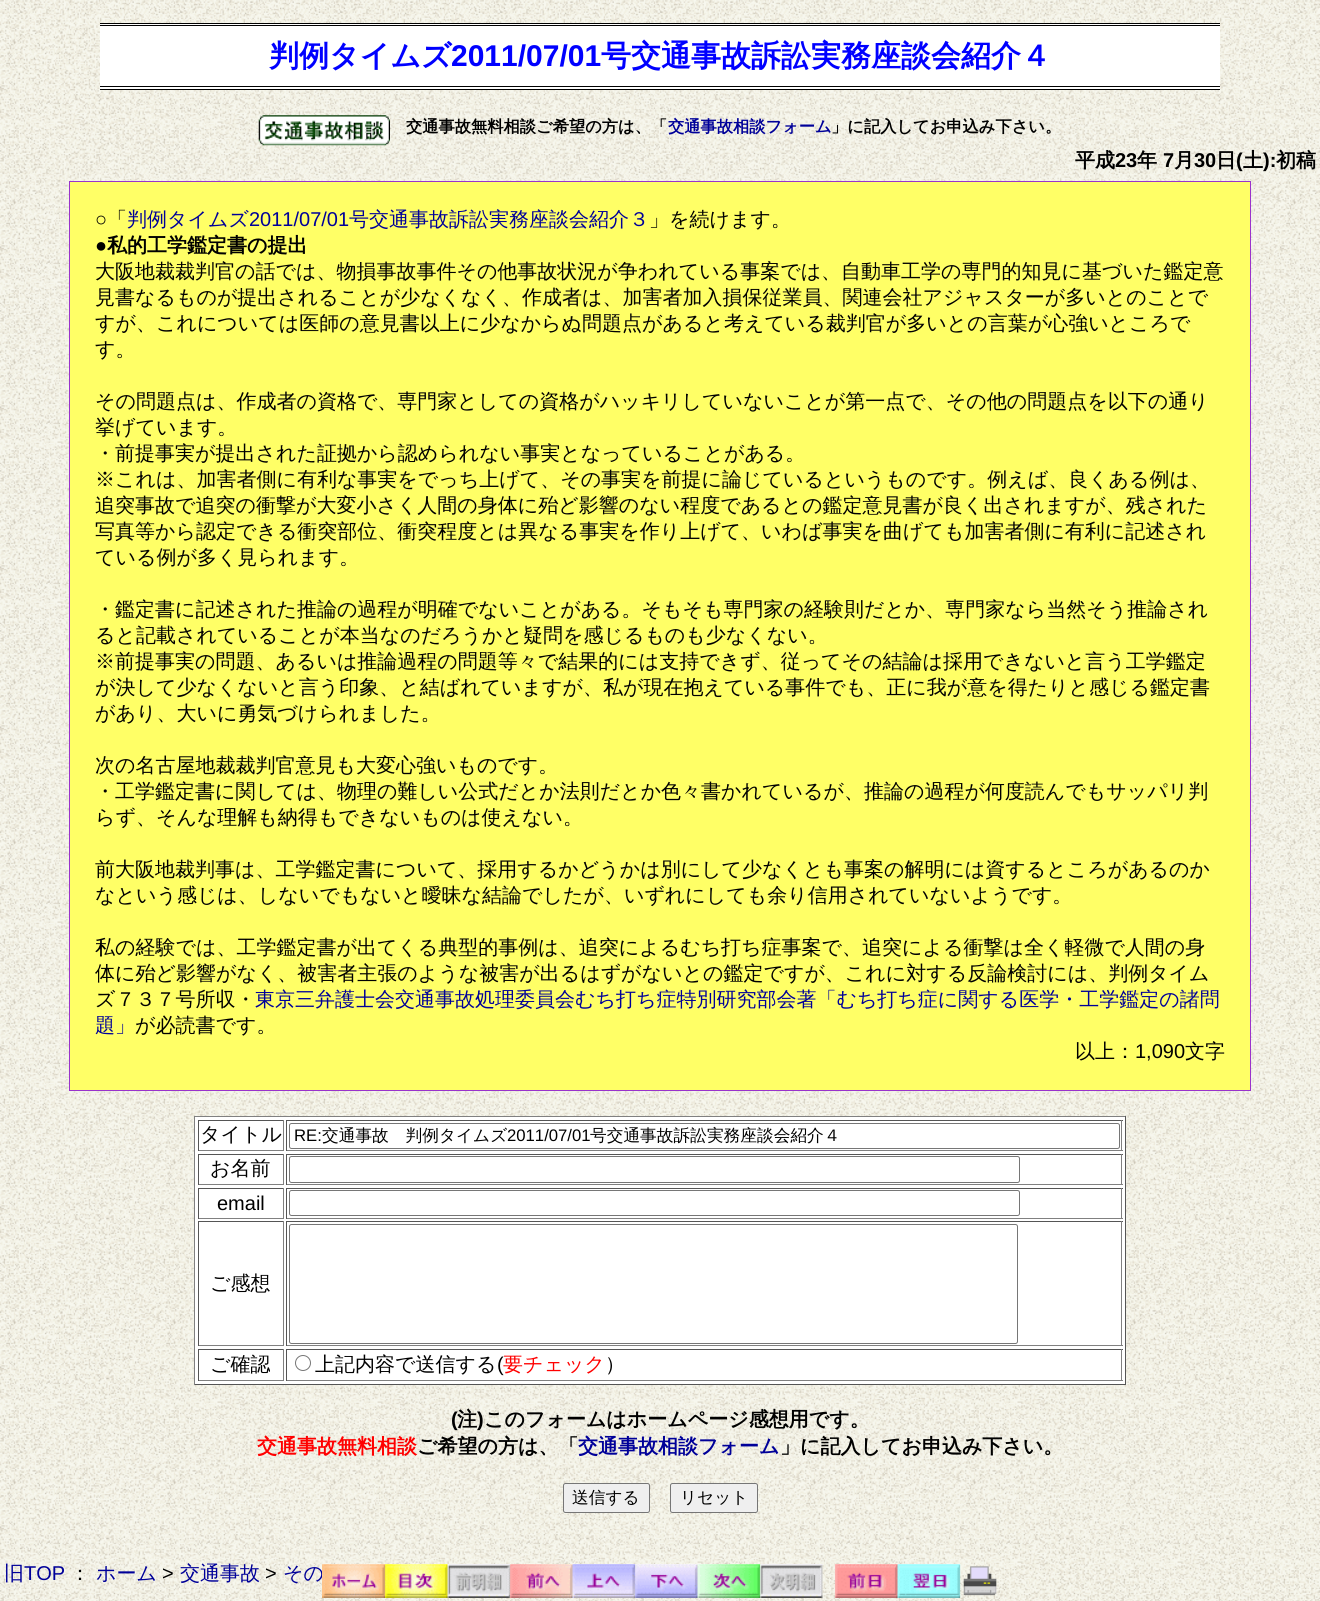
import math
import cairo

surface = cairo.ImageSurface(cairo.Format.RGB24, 1320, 1601)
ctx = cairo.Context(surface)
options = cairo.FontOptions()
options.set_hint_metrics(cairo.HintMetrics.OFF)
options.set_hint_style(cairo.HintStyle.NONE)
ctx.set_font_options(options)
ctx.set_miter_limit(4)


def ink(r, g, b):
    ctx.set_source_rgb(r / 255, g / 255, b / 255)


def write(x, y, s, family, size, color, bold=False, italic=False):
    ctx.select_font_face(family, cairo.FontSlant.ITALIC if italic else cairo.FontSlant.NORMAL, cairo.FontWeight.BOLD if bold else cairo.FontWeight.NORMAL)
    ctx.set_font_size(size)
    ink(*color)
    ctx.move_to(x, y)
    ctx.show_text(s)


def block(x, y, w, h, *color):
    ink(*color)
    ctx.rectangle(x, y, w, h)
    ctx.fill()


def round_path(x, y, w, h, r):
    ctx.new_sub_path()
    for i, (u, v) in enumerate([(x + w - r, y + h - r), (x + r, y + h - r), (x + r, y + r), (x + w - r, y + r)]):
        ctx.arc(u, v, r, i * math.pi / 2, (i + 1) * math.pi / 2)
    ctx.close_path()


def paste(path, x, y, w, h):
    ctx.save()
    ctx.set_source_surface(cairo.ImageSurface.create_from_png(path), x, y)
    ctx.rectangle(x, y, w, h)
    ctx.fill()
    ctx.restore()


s1 = dict(family="WenQuanYi Zen Hei", size=30, color=(0, 0, 255), bold=True)
s2 = dict(family="Liberation Sans", size=30, color=(0, 0, 255), bold=True)
s3 = dict(family="WenQuanYi Zen Hei", size=16.25, color=(0, 0, 0), bold=True)
s4 = dict(family="WenQuanYi Zen Hei", size=16.25, color=(0, 0, 153), bold=True)
s5 = dict(family="WenQuanYi Zen Hei", size=20, color=(0, 0, 0), bold=True)
s6 = dict(family="Liberation Sans", size=20, color=(0, 0, 0), bold=True)
s7 = dict(family="Liberation Sans", size=20, color=(0, 0, 0))
s8 = dict(family="WenQuanYi Zen Hei Medium", size=20, color=(0, 0, 0))
s9 = dict(family="WenQuanYi Zen Hei Medium", size=20, color=(0, 0, 153))
s10 = dict(family="Liberation Sans", size=20, color=(0, 0, 153))
s11 = dict(family="Liberation Sans", size=16.7, color=(0, 0, 0))
s12 = dict(family="WenQuanYi Zen Hei Medium", size=16.7, color=(0, 0, 0))
s13 = dict(family="WenQuanYi Zen Hei Medium", size=20, color=(255, 0, 0))
s14 = dict(family="WenQuanYi Zen Hei", size=20, color=(255, 0, 0), bold=True)
s15 = dict(family="WenQuanYi Zen Hei", size=20, color=(0, 0, 153), bold=True)

ink(255, 255, 255)
ctx.paint()
paste("pic1.png", 0, 0, 1320, 1601)
block(100, 24, 1120, 65, 255, 255, 255)
block(100, 23, 1120, 1, 0, 0, 0)
block(100, 25, 1120, 1, 0, 0, 0)
block(100, 86, 1120, 1, 0, 0, 0)
block(100, 89, 1120, 1, 0, 0, 0)
write(269, 66, "判例タイムズ", **s1)
write(451, 66, "2011/07/01", **s2)
write(601, 66, "号交通事故訴訟実務座談会紹介４", **s1)
paste("pic2.png", 258, 115, 132, 31)
write(406, 132, "交通事故無料相談ご希望の方は、「", **s3)
write(668, 132, "交通事故相談フォーム", **s4)
write(831, 132, "」に記入してお申込み下さい。", **s3)
write(1075, 167, "平成", **s5)
write(1115, 167, "23", **s6)
write(1137, 167, "年", **s5)
write(1163, 167, "7", **s6)
write(1174, 167, "月", **s5)
write(1194, 167, "30", **s6)
write(1216, 167, "日", **s5)
write(1236, 167, "(", **s6)
write(1243, 167, "土", **s5)
write(1263, 167, "):", **s6)
write(1276, 167, "初稿", **s5)
ink(255, 255, 102)
ctx.rectangle(69.5, 181.5, 1181, 909)
ctx.fill_preserve()
ink(153, 51, 204)
ctx.set_line_width(1)
ctx.stroke()
write(95, 226, "○", **s7)
write(107, 226, "「", **s8)
write(127, 226, "判例タイムズ", **s9)
write(249, 226, "2011/07/01", **s10)
write(349, 226, "号交通事故訴訟実務座談会紹介３", **s9)
write(649, 226, "」を続けます。", **s8)
write(95, 252, "●", **s6)
write(107, 252, "私的工学鑑定書の提出", **s5)
write(95, 278, "大阪地裁裁判官の話では、物損事故事件その他事故状況が争われている事案では、自動車工学の専門的知見に基づいた鑑定意", **s8)
write(95, 304, "見書なるものが提出されることが少なくなく、作成者は、加害者加入損保従業員、関連会社アジャスターが多いとのことで", **s8)
write(95, 330, "すが、これについては医師の意見書以上に少なからぬ問題点があると考えている裁判官が多いとの言葉が心強いところで", **s8)
write(95, 356, "す。", **s8)
write(95, 408, "その問題点は、作成者の資格で、専門家としての資格がハッキリしていないことが第一点で、その他の問題点を以下の通り", **s8)
write(95, 434, "挙げています。", **s8)
write(95, 460, "・前提事実が提出された証拠から認められない事実となっていることがある。", **s8)
write(95, 486, "※これは、加害者側に有利な事実をでっち上げて、その事実を前提に論じているというものです。例えば、良くある例は、", **s8)
write(95, 512, "追突事故で追突の衝撃が大変小さく人間の身体に殆ど影響のない程度であるとの鑑定意見書が良く出されますが、残された", **s8)
write(95, 538, "写真等から認定できる衝突部位、衝突程度とは異なる事実を作り上げて、いわば事実を曲げても加害者側に有利に記述され", **s8)
write(95, 564, "ている例が多く見られます。", **s8)
write(95, 616, "・鑑定書に記述された推論の過程が明確でないことがある。そもそも専門家の経験則だとか、専門家なら当然そう推論され", **s8)
write(95, 642, "ると記載されていることが本当なのだろうかと疑問を感じるものも少なくない。", **s8)
write(95, 668, "※前提事実の問題、あるいは推論過程の問題等々で結果的には支持できず、従ってその結論は採用できないと言う工学鑑定", **s8)
write(95, 694, "が決して少なくないと言う印象、と結ばれていますが、私が現在抱えている事件でも、正に我が意を得たりと感じる鑑定書", **s8)
write(95, 720, "があり、大いに勇気づけられました。", **s8)
write(95, 772, "次の名古屋地裁裁判官意見も大変心強いものです。", **s8)
write(95, 798, "・工学鑑定書に関しては、物理の難しい公式だとか法則だとか色々書かれているが、推論の過程が何度読んでもサッパリ判", **s8)
write(95, 824, "らず、そんな理解も納得もできないものは使えない。", **s8)
write(95, 876, "前大阪地裁判事は、工学鑑定書について、採用するかどうかは別にして少なくとも事案の解明には資するところがあるのか", **s8)
write(95, 902, "なという感じは、しないでもないと曖昧な結論でしたが、いずれにしても余り信用されていないようです。", **s8)
write(95, 954, "私の経験では、工学鑑定書が出てくる典型的事例は、追突によるむち打ち症事案で、追突による衝撃は全く軽微で人間の身", **s8)
write(95, 980, "体に殆ど影響がなく、被害者主張のような被害が出るはずがないとの鑑定ですが、これに対する反論検討には、判例タイム", **s8)
write(95, 1006, "ズ７３７号所収・", **s8)
write(255, 1006, "東京三弁護士会交通事故処理委員会むち打ち症特別研究部会著「むち打ち症に関する医学・工学鑑定の諸問", **s9)
write(95, 1032, "題」", **s9)
write(135, 1032, "が必読書です。", **s8)
write(1075, 1058, "以上：", **s8)
write(1135, 1058, "1,090", **s7)
write(1185, 1058, "文字", **s8)
block(195, 1117, 930, 267, 255, 255, 255)
block(194, 1116, 932, 1, 128, 128, 128)
block(1125, 1116, 1, 269, 85, 85, 85)
block(194, 1384, 932, 1, 85, 85, 85)
block(194, 1116, 1, 269, 128, 128, 128)
block(198, 1120, 86, 1, 85, 85, 85)
block(283, 1120, 1, 31, 128, 128, 128)
block(198, 1150, 86, 1, 128, 128, 128)
block(198, 1120, 1, 31, 85, 85, 85)
write(200, 1141, "タイトル", **s8)
block(286, 1120, 837, 1, 85, 85, 85)
block(1121, 1120, 1, 31, 128, 128, 128)
block(286, 1150, 837, 1, 128, 128, 128)
block(286, 1120, 1, 31, 85, 85, 85)
round_path(289.5, 1123.5, 830, 25, 2)
ink(118, 118, 118)
ctx.stroke()
write(294, 1141, "RE:", **s11)
write(322, 1141, "交通事故　判例タイムズ", **s12)
write(507, 1141, "2011/07/01", **s11)
write(590, 1141, "号交通事故訴訟実務座談会紹介４", **s12)
block(198, 1154, 86, 1, 85, 85, 85)
block(283, 1154, 1, 31, 128, 128, 128)
block(198, 1184, 86, 1, 128, 128, 128)
block(198, 1154, 1, 31, 85, 85, 85)
write(210, 1175, "お名前", **s8)
block(286, 1154, 837, 1, 85, 85, 85)
block(1121, 1154, 1, 31, 128, 128, 128)
block(286, 1184, 837, 1, 128, 128, 128)
block(286, 1154, 1, 31, 85, 85, 85)
round_path(289.5, 1156.5, 730, 26, 2)
ink(118, 118, 118)
ctx.stroke()
block(198, 1188, 86, 1, 85, 85, 85)
block(283, 1188, 1, 31, 128, 128, 128)
block(198, 1218, 86, 1, 128, 128, 128)
block(198, 1188, 1, 31, 85, 85, 85)
write(217, 1210, "email", **s7)
block(286, 1188, 837, 1, 85, 85, 85)
block(1121, 1188, 1, 31, 128, 128, 128)
block(286, 1218, 837, 1, 128, 128, 128)
block(286, 1188, 1, 31, 85, 85, 85)
round_path(289.5, 1190.5, 730, 25, 2)
ink(118, 118, 118)
ctx.stroke()
block(198, 1221, 86, 1, 85, 85, 85)
block(283, 1221, 1, 125, 128, 128, 128)
block(198, 1345, 86, 1, 128, 128, 128)
block(198, 1221, 1, 125, 85, 85, 85)
write(210, 1290, "ご感想", **s8)
block(286, 1221, 837, 1, 85, 85, 85)
block(1121, 1221, 1, 125, 128, 128, 128)
block(286, 1345, 837, 1, 128, 128, 128)
block(286, 1221, 1, 125, 85, 85, 85)
round_path(289.5, 1224.5, 728, 119, 2)
ink(118, 118, 118)
ctx.stroke()
block(198, 1349, 86, 1, 85, 85, 85)
block(283, 1349, 1, 32, 128, 128, 128)
block(198, 1380, 86, 1, 128, 128, 128)
block(198, 1349, 1, 32, 85, 85, 85)
write(210, 1371, "ご確認", **s8)
block(286, 1349, 837, 1, 85, 85, 85)
block(1121, 1349, 1, 32, 128, 128, 128)
block(286, 1380, 837, 1, 128, 128, 128)
block(286, 1349, 1, 32, 85, 85, 85)
ctx.new_path()
ctx.arc(303, 1363, 7.5, 0, 2 * math.pi)
ink(118, 118, 118)
ctx.stroke()
write(315, 1371, "上記内容で送信する", **s8)
write(497, 1371, "(", **s7)
write(503, 1371, "要チェック", **s13)
write(605, 1371, "）", **s8)
write(451, 1426, "(", **s6)
write(457, 1426, "注", **s5)
write(477, 1426, ")", **s6)
write(484, 1426, "このフォームはホームページ感想用です。", **s5)
write(257, 1453, "交通事故無料相談", **s14)
write(417, 1453, "ご希望の方は、「", **s5)
write(578, 1453, "交通事故相談フォーム", **s15)
write(780, 1453, "」に記入してお申込み下さい。", **s5)
ink(239, 239, 239)
round_path(563.5, 1483.5, 86, 29, 2)
ctx.fill_preserve()
ink(118, 118, 118)
ctx.stroke()
write(572, 1503, "送信する", **s12)
ink(239, 239, 239)
round_path(670.5, 1483.5, 87, 29, 2)
ctx.fill_preserve()
ink(118, 118, 118)
ctx.stroke()
write(680, 1503, "リセット", **s12)
write(4, 1580, "旧", **s9)
write(24, 1580, "TOP", **s10)
write(70, 1580, "：", **s8)
write(96, 1580, "ホーム", **s9)
write(162, 1580, ">", **s7)
write(180, 1580, "交通事故", **s9)
write(265, 1580, ">", **s7)
write(283, 1580, "その", **s9)
paste("pic3.png", 322, 1564, 675, 34)
surface.write_to_png("screenshot.png")
